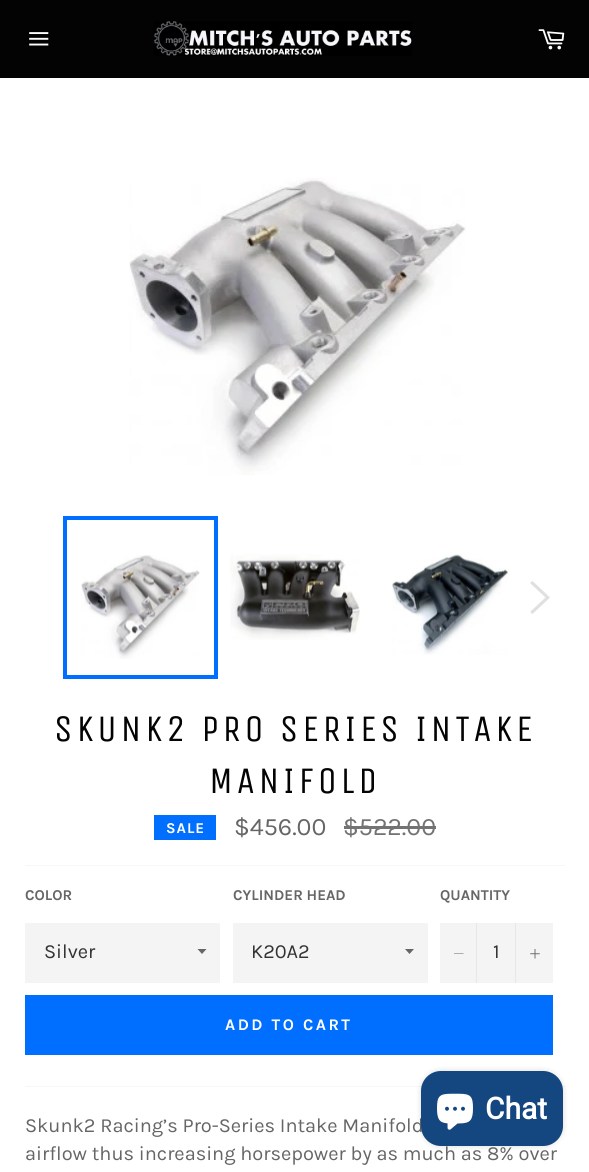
import math
import cairo

surface = cairo.ImageSurface(cairo.Format.RGB24, 589, 1172)
ctx = cairo.Context(surface)
options = cairo.FontOptions()
options.set_hint_metrics(cairo.HintMetrics.OFF)
options.set_hint_style(cairo.HintStyle.NONE)
ctx.set_font_options(options)
ctx.set_miter_limit(4)


def ink(r, g, b):
    ctx.set_source_rgb(r / 255, g / 255, b / 255)


def write(x, y, s, family, size, color, bold=False, italic=False):
    ctx.select_font_face(family, cairo.FontSlant.ITALIC if italic else cairo.FontSlant.NORMAL, cairo.FontWeight.BOLD if bold else cairo.FontWeight.NORMAL)
    ctx.set_font_size(size)
    ink(*color)
    ctx.move_to(x, y)
    ctx.show_text(s)


def write_spaced(x, y, s, letter, word):
    ctx.move_to(x, y)
    for ch in s:
        ctx.show_text(ch)
        ctx.rel_move_to(letter + word * (ch == ' '), 0)


def block(x, y, w, h, *color):
    ink(*color)
    ctx.rectangle(x, y, w, h)
    ctx.fill()


def round_path(x, y, w, h, r):
    ctx.new_sub_path()
    for i, (u, v) in enumerate([(x + w - r, y + h - r), (x + r, y + h - r), (x + r, y + r), (x + w - r, y + r)]):
        ctx.arc(u, v, r, i * math.pi / 2, (i + 1) * math.pi / 2)
    ctx.close_path()


def blur_box(x, y, w, h, r, blur, alpha):
    ctx.push_group_with_content(cairo.Content.ALPHA)
    ctx.set_operator(cairo.Operator.SOURCE)
    for i in range(15, -16, -2):
        e = blur * i / 6
        if min(w, h) + 2 * e > 0:
            ctx.set_source_rgba(0, 0, 0, alpha * math.erfc((i - 1) / 8.5) / 2)
            round_path(x - e, y - e, w + 2 * e, h + 2 * e, max(0, min(r + e + blur * .6, min(w, h) / 2 + e)))
            ctx.fill()
    ctx.mask(ctx.pop_group())


def paste(path, x, y, w, h):
    ctx.save()
    ctx.set_source_surface(cairo.ImageSurface.create_from_png(path), x, y)
    ctx.rectangle(x, y, w, h)
    ctx.fill()
    ctx.restore()


s1 = dict(family="Karla", size=25, color=(102, 102, 102))
s2 = dict(family="Karla", size=25, color=(115, 115, 115))
s3 = dict(family="Karla", size=15, color=(102, 102, 102), bold=True)
s4 = dict(family="Karla", size=20, color=(51, 51, 51))
s5 = dict(family="Karla", size=20, color=(102, 102, 102))
s6 = dict(family="Roboto", size=30, color=(255, 255, 255), bold=True)

ink(3, 3, 3)
ctx.paint()
paste("pic1.png", 29, 32, 20, 14)
paste("pic2.png", 153, 21, 259, 35)
paste("pic3.png", 538, 29, 27, 21)
block(0, 78, 589, 1094, 255, 255, 255)
paste("pic4.png", 129, 178, 337, 297)
paste("pic5.png", 81, 555, 119, 104)
ctx.rectangle(65, 518, 151, 159)
ink(0, 110, 255)
ctx.set_line_width(4)
ctx.stroke()
paste("pic6.png", 230, 554, 130, 86)
paste("pic7.png", 392, 554, 116, 101)
ink(224, 224, 224)
ctx.new_path()
ctx.move_to(530, 583)
ctx.line_to(532.5, 581)
ctx.line_to(550, 597.5)
ctx.line_to(532.5, 614)
ctx.line_to(530, 612)
ctx.line_to(545.5, 597.5)
ctx.close_path()
ctx.fill()
ctx.select_font_face("Unica One")
ctx.set_font_size(37.5)
ink(3, 3, 3)
write_spaced(54, 741, "SKUNK2 PRO SERIES INTAKE", 3.75, 0)
write_spaced(209, 793, "MANIFOLD", 3.75, 0)
block(154, 815, 62, 25, 0, 110, 255)
ctx.select_font_face("Karla", cairo.FontSlant.NORMAL, cairo.FontWeight.BOLD)
ctx.set_font_size(15)
ink(255, 255, 255)
write_spaced(166, 833, "SALE", 1, 0)
write(234, 835, "$456.00", **s1)
write(343, 835, "$522.00", **s2)
block(344, 826, 92, 3, 115, 115, 115)
block(25, 865, 540, 1, 247, 247, 247)
write(25, 900, "COLOR", **s3)
block(25, 923, 195, 60, 244, 244, 244)
ink(102, 102, 102)
ctx.new_path()
ctx.move_to(197.5, 949)
ctx.line_to(202, 954)
ctx.line_to(206.5, 949)
ctx.close_path()
ctx.fill()
write(44, 958, "Silver", **s4)
write(233, 900, "CYLINDER HEAD", **s3)
block(233, 923, 195, 60, 244, 244, 244)
ink(102, 102, 102)
ctx.new_path()
ctx.move_to(405, 949)
ctx.line_to(409.5, 954)
ctx.line_to(414, 949)
ctx.close_path()
ctx.fill()
write(251, 958, "K20A2", **s4)
write(440, 900, "QUANTITY", **s3)
block(440, 923, 113, 60, 244, 244, 244)
block(476, 923, 1, 60, 231, 231, 231)
ink(102, 102, 102)
ctx.set_fill_rule(cairo.FillRule.EVEN_ODD)
ctx.new_path()
ctx.move_to(463.5, 953.5)
ctx.line_to(463.5, 954)
ctx.line_to(454, 954)
ctx.line_to(454, 953.5)
ctx.close_path()
ctx.fill()
write(493, 958, "1", **s4)
block(515, 923, 1, 60, 231, 231, 231)
paste("pic8.png", 530, 949, 10, 10)
block(25, 995, 528, 60, 0, 110, 255)
ctx.select_font_face("Karla", cairo.FontSlant.NORMAL, cairo.FontWeight.BOLD)
ctx.set_font_size(16.25)
ink(255, 255, 255)
write_spaced(225, 1030, "ADD TO CART", 2.5, 0)
block(25, 1086, 540, 1, 247, 247, 247)
write(25, 1132, "Skunk2 Racing’s Pro-Series Intake Manifold", **s5)
write(25, 1160, "airflow thus increasing horsepower by as much as 8% over", **s5)
ink(0, 0, 0)
blur_box(421, 1071, 142, 75, 20, 3, 0.15)
ink(20, 70, 128)
round_path(421, 1071, 142, 75, 20)
ctx.fill()
paste("pic9.png", 437, 1093, 36, 37)
write(485, 1119, "Chat", **s6)
surface.write_to_png("screenshot.png")
